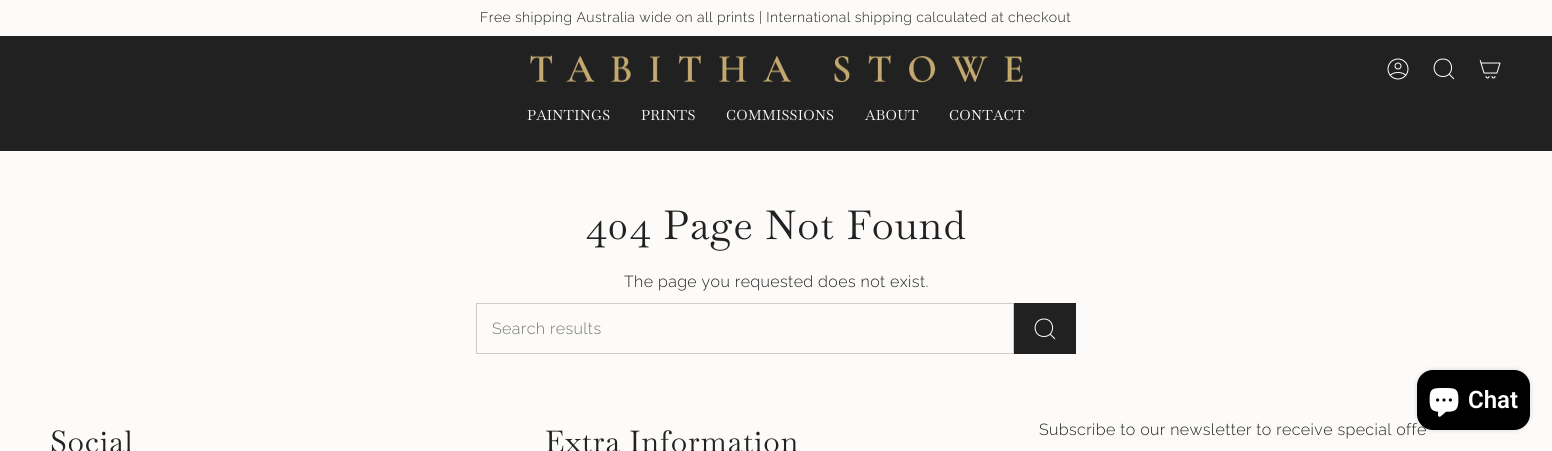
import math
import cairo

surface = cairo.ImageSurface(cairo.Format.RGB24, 1552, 451)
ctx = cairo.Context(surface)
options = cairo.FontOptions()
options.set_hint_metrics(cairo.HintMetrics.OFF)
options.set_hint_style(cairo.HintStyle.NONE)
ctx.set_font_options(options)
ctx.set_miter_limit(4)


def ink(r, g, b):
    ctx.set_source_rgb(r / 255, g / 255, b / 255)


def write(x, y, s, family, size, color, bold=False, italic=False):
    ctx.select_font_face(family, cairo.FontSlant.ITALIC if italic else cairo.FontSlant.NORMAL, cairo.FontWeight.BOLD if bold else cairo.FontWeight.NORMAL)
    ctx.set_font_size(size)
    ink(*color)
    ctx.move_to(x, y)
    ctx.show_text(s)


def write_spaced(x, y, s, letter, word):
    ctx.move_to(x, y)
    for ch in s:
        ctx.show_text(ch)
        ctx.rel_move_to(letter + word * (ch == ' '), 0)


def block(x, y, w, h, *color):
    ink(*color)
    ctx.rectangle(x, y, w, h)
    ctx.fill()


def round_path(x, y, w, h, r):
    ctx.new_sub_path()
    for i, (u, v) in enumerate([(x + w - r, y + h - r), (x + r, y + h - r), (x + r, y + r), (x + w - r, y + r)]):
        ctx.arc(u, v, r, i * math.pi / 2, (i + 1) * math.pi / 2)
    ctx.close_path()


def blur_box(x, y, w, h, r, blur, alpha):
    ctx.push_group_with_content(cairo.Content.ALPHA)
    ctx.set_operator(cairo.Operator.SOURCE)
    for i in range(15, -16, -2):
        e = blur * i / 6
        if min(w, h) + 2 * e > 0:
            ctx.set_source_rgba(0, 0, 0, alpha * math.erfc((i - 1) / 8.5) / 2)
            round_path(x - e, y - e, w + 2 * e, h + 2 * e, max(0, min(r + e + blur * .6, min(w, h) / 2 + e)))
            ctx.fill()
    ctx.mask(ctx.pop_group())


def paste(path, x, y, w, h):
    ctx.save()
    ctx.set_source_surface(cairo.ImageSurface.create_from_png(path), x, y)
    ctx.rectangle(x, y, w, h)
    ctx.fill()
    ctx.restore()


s1 = dict(family="Roboto SemiBold", size=24, color=(255, 255, 255))

ink(252, 251, 249)
ctx.paint()
ctx.select_font_face("Raleway Light")
ctx.set_font_size(14)
ink(33, 33, 33)
write_spaced(480, 22, "Free shipping Australia wide on all prints | International shipping calculated at checkout", 0.4, 0)
block(0, 36, 1552, 115, 33, 33, 33)
paste("pic1.png", 530, 55, 493, 28)
paste("pic2.png", 1387, 58, 22, 22)
ctx.new_path()
ctx.move_to(1443, 59)
ctx.curve_to(1454.5, 59, 1454.5, 77, 1442.5, 76.5)
ctx.curve_to(1431, 76, 1431.5, 59, 1443, 59)
ctx.close_path()
ctx.move_to(1449, 74)
ctx.line_to(1454, 79)
ink(255, 255, 255)
ctx.set_line_width(1)
ctx.stroke()
paste("pic3.png", 1479, 60, 22, 19)
ctx.select_font_face("Baskervville")
write_spaced(527, 120, "PAINTINGS", 0.25, 0)
write_spaced(641, 120, "PRINTS", 0.25, 0)
write_spaced(726, 120, "COMMISSIONS", 0.25, 0)
write_spaced(865, 120, "ABOUT", 0.25, 0)
write_spaced(949, 120, "CONTACT", 0.25, 0)
ctx.set_font_size(40)
ink(33, 33, 33)
write_spaced(585, 239, "404 Page Not Found", 1, 0)
ctx.select_font_face("Raleway Light")
ctx.set_font_size(16)
write_spaced(624, 287, "The page you requested does not exist.", 0.4, 0)
ctx.rectangle(476.5, 303.5, 537, 50)
ink(209, 205, 196)
ctx.stroke()
ink(117, 117, 117)
write_spaced(492, 334, "Search results", 0.4, 0)
block(1014, 303, 62, 51, 33, 33, 33)
ctx.new_path()
ctx.move_to(1044, 319)
ctx.curve_to(1055.5, 319, 1055.5, 337, 1043.5, 336.5)
ctx.curve_to(1032, 336, 1032.5, 319, 1044, 319)
ctx.close_path()
ctx.move_to(1050, 334)
ctx.line_to(1055, 339)
ink(255, 255, 255)
ctx.stroke()
ink(0, 0, 0)
blur_box(1417, 370, 113, 60, 16, 2.5, 0.15)
ink(33, 33, 33)
write_spaced(1039, 435, "Subscribe to our newsletter to receive special offe", 0.4, 0)
ink(0, 0, 0)
round_path(1417, 370, 113, 60, 16)
ctx.fill()
paste("pic4.png", 1429, 388, 30, 29)
write(1468, 408, "Chat", **s1)
ctx.select_font_face("Baskervville")
ctx.set_font_size(30)
ink(33, 33, 33)
write_spaced(50, 452, "Social", 0.75, 0)
write_spaced(545, 452, "Extra Information", 0.75, 0)
surface.write_to_png("screenshot.png")
